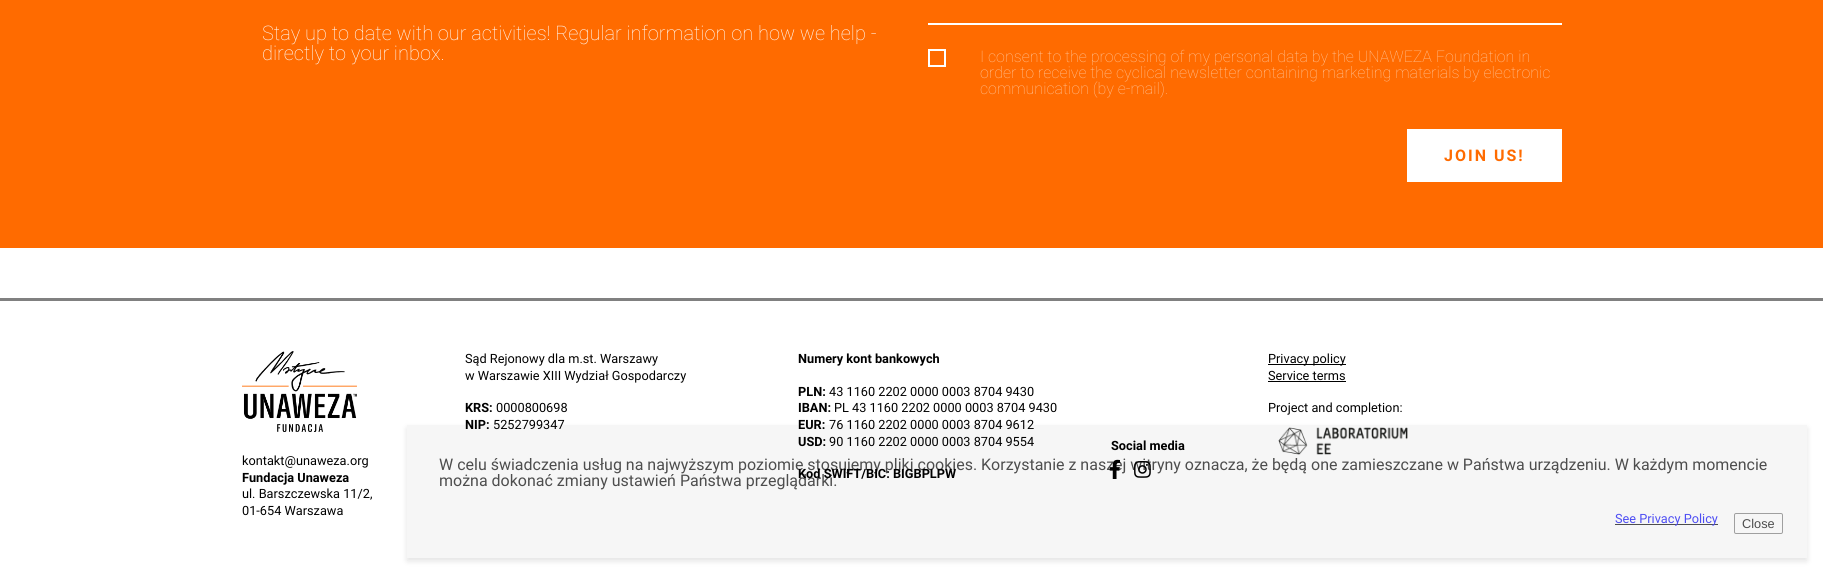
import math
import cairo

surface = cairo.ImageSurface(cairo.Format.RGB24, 1823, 574)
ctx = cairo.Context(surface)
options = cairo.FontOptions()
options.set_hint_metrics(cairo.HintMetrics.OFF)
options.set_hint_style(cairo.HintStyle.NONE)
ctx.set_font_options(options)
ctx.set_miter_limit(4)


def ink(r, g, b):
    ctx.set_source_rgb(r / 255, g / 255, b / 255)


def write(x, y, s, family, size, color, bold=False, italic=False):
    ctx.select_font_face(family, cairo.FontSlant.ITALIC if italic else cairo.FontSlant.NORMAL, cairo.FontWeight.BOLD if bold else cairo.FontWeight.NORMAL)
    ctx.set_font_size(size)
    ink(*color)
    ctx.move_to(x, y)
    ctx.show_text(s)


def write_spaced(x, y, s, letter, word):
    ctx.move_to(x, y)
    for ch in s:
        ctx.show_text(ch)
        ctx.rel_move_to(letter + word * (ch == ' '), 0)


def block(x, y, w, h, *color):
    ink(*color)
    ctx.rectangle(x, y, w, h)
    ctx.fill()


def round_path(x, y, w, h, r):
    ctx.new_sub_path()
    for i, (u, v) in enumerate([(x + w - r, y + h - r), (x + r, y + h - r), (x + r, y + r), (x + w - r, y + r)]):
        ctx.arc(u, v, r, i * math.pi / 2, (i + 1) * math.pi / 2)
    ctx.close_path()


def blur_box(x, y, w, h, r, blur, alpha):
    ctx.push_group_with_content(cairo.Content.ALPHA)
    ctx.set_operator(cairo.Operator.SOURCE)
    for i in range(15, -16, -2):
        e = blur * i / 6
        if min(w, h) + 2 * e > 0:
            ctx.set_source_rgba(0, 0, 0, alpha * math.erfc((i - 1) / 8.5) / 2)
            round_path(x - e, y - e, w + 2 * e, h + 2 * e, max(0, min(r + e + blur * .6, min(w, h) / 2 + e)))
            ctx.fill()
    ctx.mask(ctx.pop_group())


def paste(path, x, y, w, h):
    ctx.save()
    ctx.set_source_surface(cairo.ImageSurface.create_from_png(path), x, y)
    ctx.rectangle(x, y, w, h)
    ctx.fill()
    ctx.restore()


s1 = dict(family="Roboto Thin", size=20, color=(255, 255, 255))
s2 = dict(family="Roboto Thin", size=16, color=(255, 196, 153))
s3 = dict(family="Roboto", size=12.75, color=(0, 0, 0))
s4 = dict(family="Roboto", size=12.75, color=(0, 0, 0), bold=True)
s5 = dict(family="Roboto", size=16, color=(77, 77, 77))
s6 = dict(family="Roboto", size=12.75, color=(77, 77, 243))
s7 = dict(family="Liberation Sans", size=12.75, color=(77, 77, 77))

ink(255, 255, 255)
ctx.paint()
block(0, 0, 1823, 248, 255, 107, 0)
write(262, 40, "Stay up to date with our activities! Regular information on how we help -", **s1)
write(262, 60, "directly to your inbox.", **s1)
block(928, 23, 634, 2, 255, 255, 255)
ctx.rectangle(929, 50, 16, 16)
ctx.stroke()
write(980, 62, "I consent to the processing of my personal data by the UNAWEZA Foundation in", **s2)
write(980, 78, "order to receive the cyclical newsletter containing marketing materials by electronic", **s2)
write(980, 94, "communication (by e-mail).", **s2)
block(1407, 129, 155, 53, 255, 255, 255)
ctx.select_font_face("Roboto", cairo.FontSlant.NORMAL, cairo.FontWeight.BOLD)
ink(255, 107, 0)
write_spaced(1444, 161, "JOIN US!", 2, 0)
block(0, 298, 1823, 3, 128, 128, 128)
write(465, 363, "Sąd Rejonowy dla m.st. Warszawy", **s3)
write(465, 380, "w Warszawie XIII Wydział Gospodarczy", **s3)
write(465, 412, "KRS:", **s4)
write(496, 412, "0000800698", **s3)
ink(77, 77, 77)
blur_box(407, 428, 1400, 133, 0, 3, 0.16)
block(407, 425, 1400, 133, 246, 246, 246)
write(465, 429, "NIP:", **s4)
write(493, 429, "5252799347", **s3)
write(798, 363, "Numery kont bankowych", **s4)
write(798, 396, "PLN:", **s4)
write(829, 396, "43 1160 2202 0000 0003 8704 9430", **s3)
write(798, 412, "IBAN:", **s4)
write(834, 412, "PL 43 1160 2202 0000 0003 8704 9430", **s3)
write(798, 429, "EUR:", **s4)
write(829, 429, "76 1160 2202 0000 0003 8704 9612", **s3)
write(798, 446, "USD:", **s4)
write(829, 446, "90 1160 2202 0000 0003 8704 9554", **s3)
write(439, 470, "W celu świadczenia usług na najwyższym poziomie stosujemy pliki cookies. Korzystanie z naszej witryny oznacza, że będą one zamieszczane w Państwa urządzeniu. W każdym momencie", **s5)
write(439, 486, "można dokonać zmiany ustawień Państwa przeglądarki.", **s5)
write(798, 478, "Kod SWIFT/BIC: BIGBPLPW", **s4)
block(1268, 364, 78, 1, 0, 0, 0)
write(1268, 363, "Privacy policy", **s3)
write(1268, 380, "Service terms", **s3)
block(1268, 381, 78, 1, 0, 0, 0)
write(1268, 412, "Project and completion:", **s3)
paste("pic1.png", 1278, 427, 130, 28)
write(1111, 450, "Social media", **s4)
paste("pic2.png", 1109, 459, 11, 20)
paste("pic3.png", 1134, 461, 17, 17)
paste("pic4.png", 242, 351, 115, 81)
write(242, 465, "kontakt@unaweza.org", **s3)
write(242, 482, "Fundacja Unaweza", **s4)
write(242, 498, "ul. Barszczewska 11/2,", **s3)
write(242, 515, "01-654 Warszawa", **s3)
block(1615, 524, 103, 1, 77, 77, 77)
write(1615, 523, "See Privacy Policy", **s6)
round_path(1734.5, 513.5, 48, 20, 1.5)
ink(159, 159, 159)
ctx.set_line_width(1)
ctx.stroke()
write(1742, 528, "Close", **s7)
surface.write_to_png("screenshot.png")
